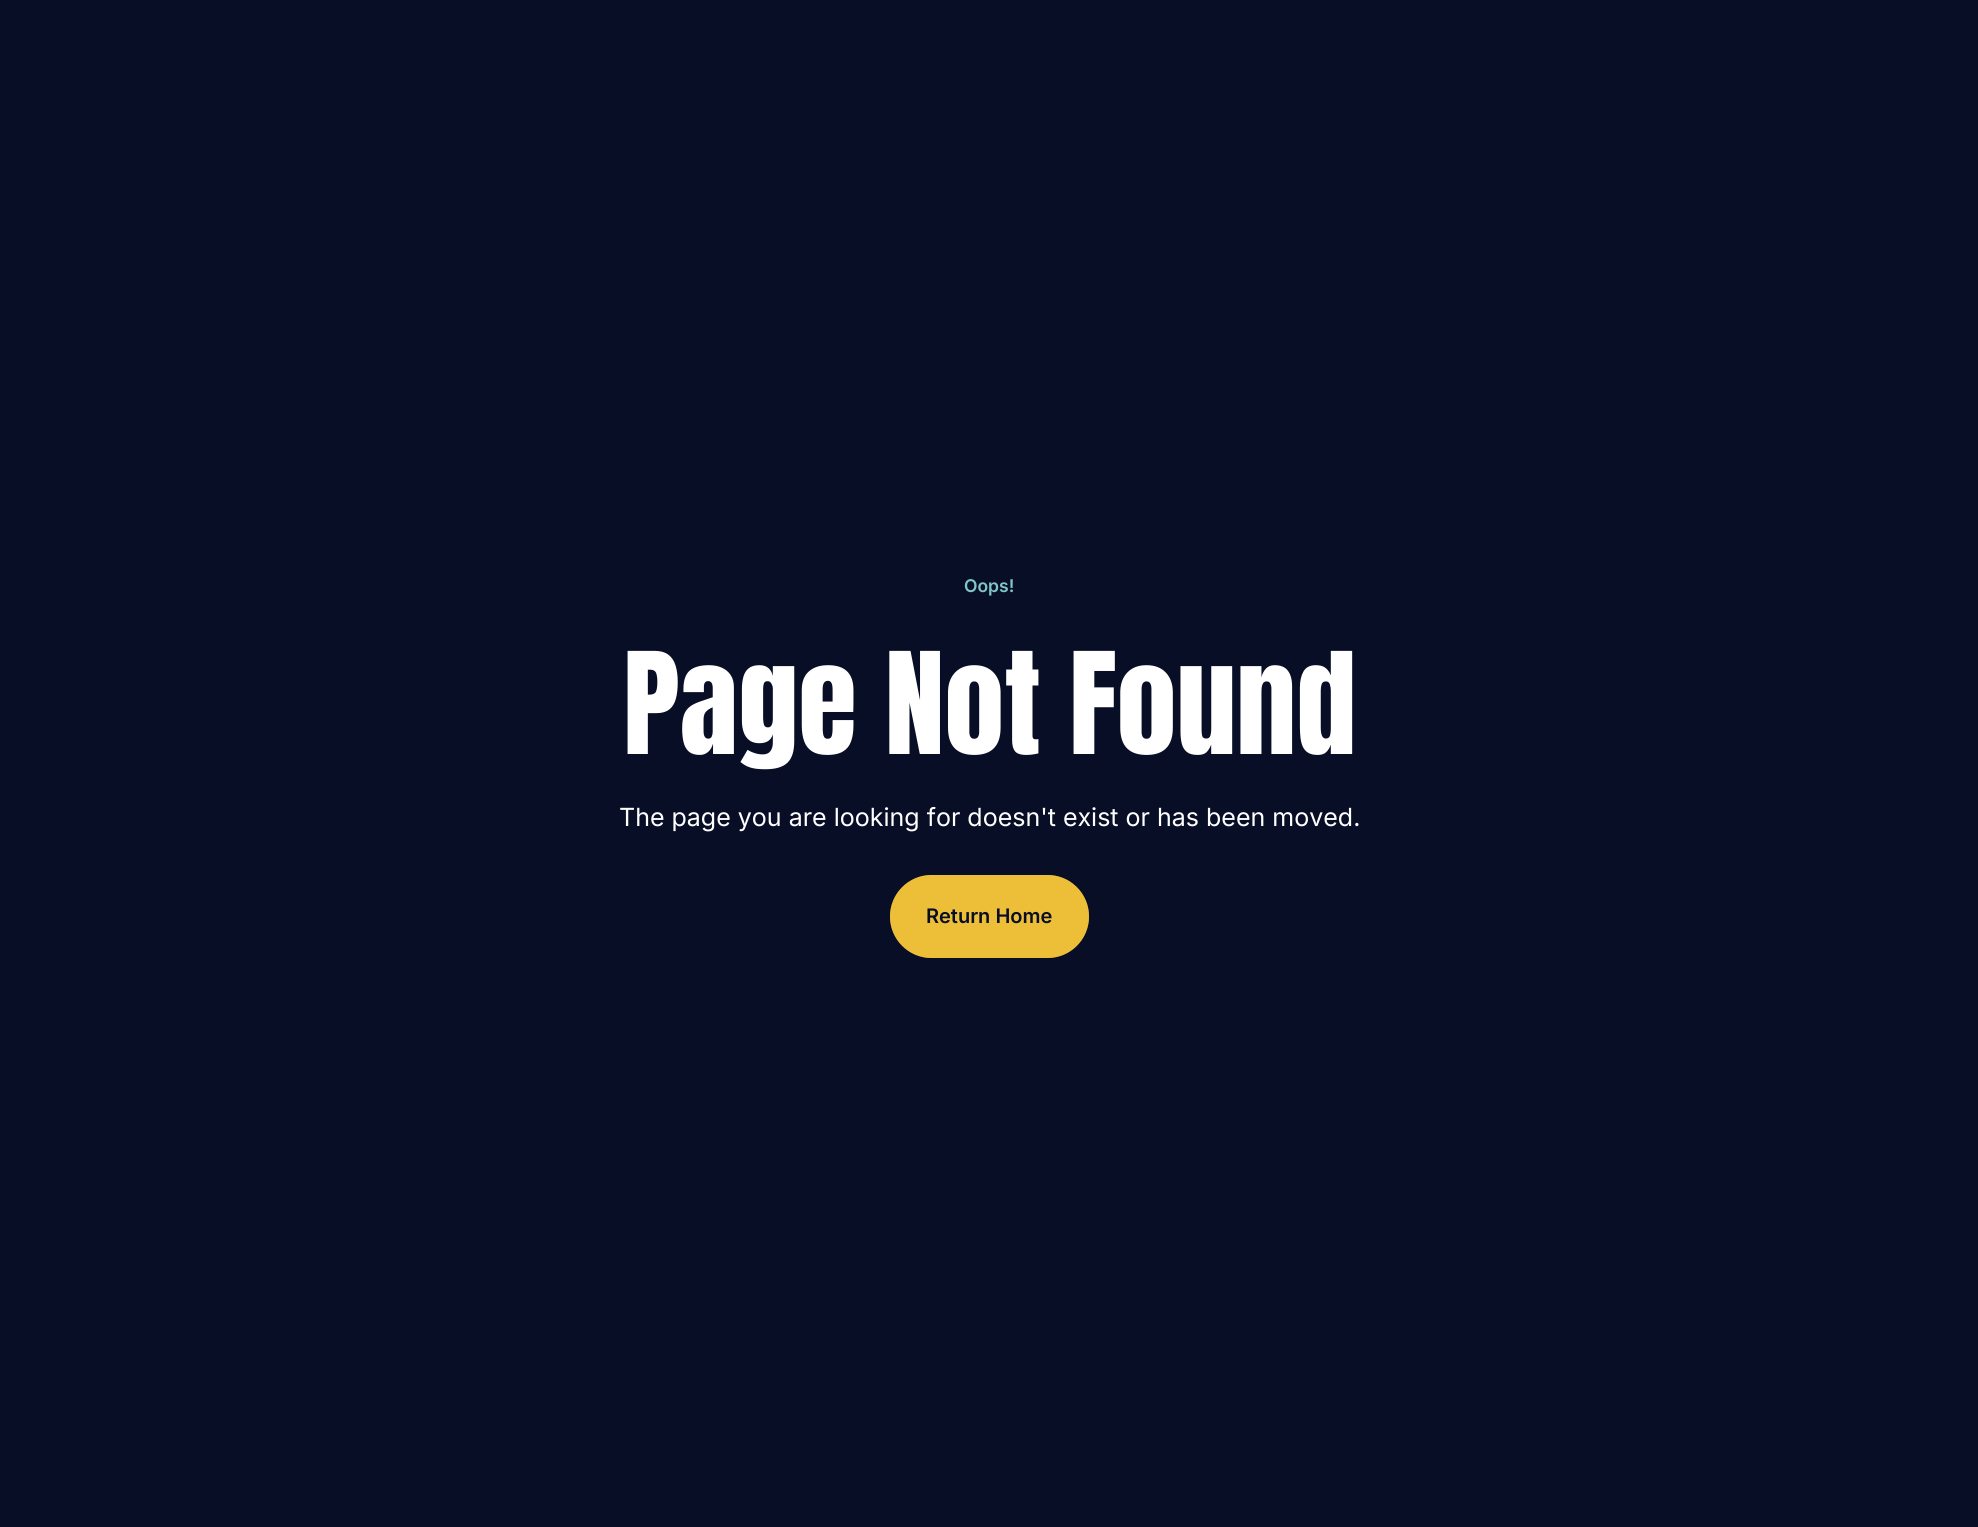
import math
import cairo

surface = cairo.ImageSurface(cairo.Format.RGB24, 1978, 1527)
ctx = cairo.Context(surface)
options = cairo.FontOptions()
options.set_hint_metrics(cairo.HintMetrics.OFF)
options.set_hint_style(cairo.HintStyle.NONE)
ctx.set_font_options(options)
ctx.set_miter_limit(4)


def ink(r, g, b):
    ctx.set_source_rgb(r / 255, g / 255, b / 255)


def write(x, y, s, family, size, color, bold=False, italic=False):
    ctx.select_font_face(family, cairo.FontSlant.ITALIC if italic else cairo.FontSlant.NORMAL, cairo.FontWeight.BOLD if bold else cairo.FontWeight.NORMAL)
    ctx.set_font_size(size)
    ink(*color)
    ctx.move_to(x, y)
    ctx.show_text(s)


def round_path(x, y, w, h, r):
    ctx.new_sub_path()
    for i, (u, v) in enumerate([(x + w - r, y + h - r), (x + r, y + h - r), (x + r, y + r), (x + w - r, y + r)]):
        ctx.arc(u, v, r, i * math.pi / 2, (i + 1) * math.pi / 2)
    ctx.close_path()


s1 = dict(family="Inter SemiBold", size=17.5, color=(127, 199, 198))
s2 = dict(family="Anton", size=120, color=(255, 255, 255))
s3 = dict(family="Inter", size=25, color=(255, 255, 255))
s4 = dict(family="Inter SemiBold", size=20, color=(9, 14, 39))

ink(9, 14, 39)
ctx.paint()
write(964, 592, "Oops!", **s1)
write(623, 754, "Page Not Found", **s2)
write(619, 826, "The page you are looking for doesn't exist or has been moved.", **s3)
ink(237, 191, 56)
round_path(890, 875, 199, 83, 41.5)
ctx.fill()
round_path(890.5, 875.5, 198, 82, 41)
ctx.set_source_rgba(0.929, 0.749, 0.22, 0.6)
ctx.set_line_width(1)
ctx.stroke()
write(926, 923, "Return Home", **s4)
surface.write_to_png("screenshot.png")
